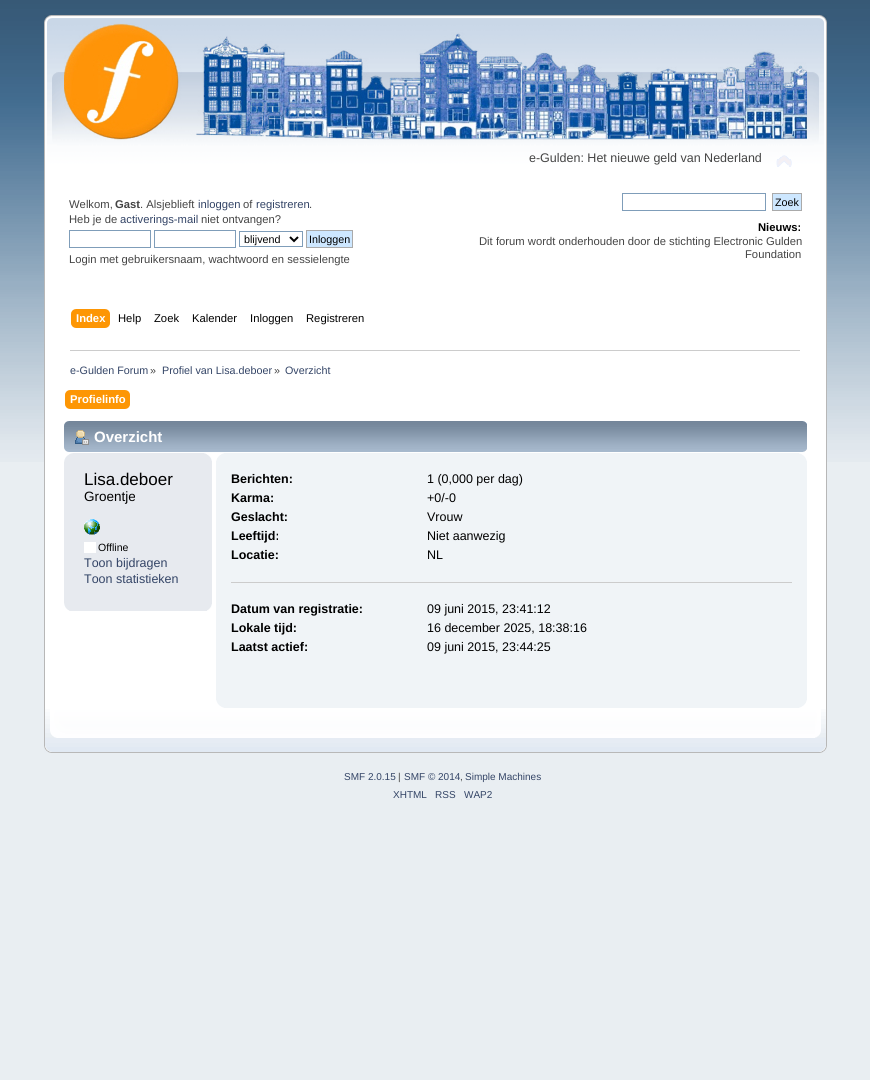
import math
import cairo

surface = cairo.ImageSurface(cairo.Format.RGB24, 870, 1080)
ctx = cairo.Context(surface)
options = cairo.FontOptions()
options.set_hint_metrics(cairo.HintMetrics.OFF)
options.set_hint_style(cairo.HintStyle.NONE)
ctx.set_font_options(options)
ctx.set_miter_limit(4)


def ink(r, g, b):
    ctx.set_source_rgb(r / 255, g / 255, b / 255)


def write(x, y, s, family, size, color, bold=False, italic=False):
    ctx.select_font_face(family, cairo.FontSlant.ITALIC if italic else cairo.FontSlant.NORMAL, cairo.FontWeight.BOLD if bold else cairo.FontWeight.NORMAL)
    ctx.set_font_size(size)
    ink(*color)
    ctx.move_to(x, y)
    ctx.show_text(s)


def block(x, y, w, h, *color):
    ink(*color)
    ctx.rectangle(x, y, w, h)
    ctx.fill()


def paste(path, x, y, w, h):
    ctx.save()
    ctx.set_source_surface(cairo.ImageSurface.create_from_png(path), x, y)
    ctx.rectangle(x, y, w, h)
    ctx.fill()
    ctx.restore()


s1 = dict(family="Liberation Sans", size=12.5, color=(68, 68, 68))
s2 = dict(family="Liberation Sans", size=11.25, color=(68, 68, 68))
s3 = dict(family="Liberation Sans", size=11.25, color=(68, 68, 68), bold=True)
s4 = dict(family="Liberation Sans", size=11.25, color=(51, 68, 102))
s5 = dict(family="Liberation Sans", size=10.75, color=(0, 0, 0))
s6 = dict(family="Liberation Sans", size=11.25, color=(0, 0, 0), bold=True)
s7 = dict(family="Liberation Sans", size=11.25, color=(255, 255, 255), bold=True)
s8 = dict(family="Liberation Sans", size=11.25, color=(0, 0, 0))
s9 = dict(family="Liberation Sans", size=10.75, color=(51, 68, 102))
s10 = dict(family="Liberation Sans", size=10.75, color=(68, 68, 68))
s11 = dict(family="Liberation Sans", size=15, color=(255, 255, 255), bold=True)
s12 = dict(family="Liberation Sans", size=17, color=(0, 0, 0))
s13 = dict(family="Liberation Sans", size=13.5, color=(0, 0, 0))
s14 = dict(family="Liberation Sans", size=10.5, color=(0, 0, 0))
s15 = dict(family="Liberation Sans", size=12.5, color=(51, 68, 102))
s16 = dict(family="Liberation Sans", size=12.5, color=(0, 0, 0), bold=True)
s17 = dict(family="Liberation Sans", size=12.5, color=(0, 0, 0))
s18 = dict(family="Liberation Sans", size=10, color=(51, 68, 102))
s19 = dict(family="Liberation Sans", size=10, color=(68, 68, 68))

ink(233, 238, 242)
ctx.paint()
paste("pic1.png", 0, 0, 870, 462)
paste("pic2.png", 44, 15, 769, 329)
paste("pic3.png", 813, 15, 14, 329)
paste("pic4.png", 64, 23, 743, 117)
write(529, 162, "e-Gulden: Het nieuwe geld van Nederland", **s1)
paste("pic5.png", 776, 155, 16, 12)
write(69, 208, "Welkom,", **s2)
write(115, 208, "Gast", **s3)
write(140, 208, ". Alsjeblieft", **s2)
write(198, 208, "inloggen", **s4)
write(243, 208, "of", **s2)
write(256, 208, "registreren", **s4)
write(309, 208, ".", **s2)
write(69, 223, "Heb je de", **s2)
write(120, 223, "activerings-mail", **s4)
write(201, 223, "niet ontvangen?", **s2)
ctx.rectangle(69.5, 230.5, 81, 17)
ink(127, 157, 185)
ctx.set_line_width(1)
ctx.stroke()
ctx.rectangle(154.5, 230.5, 81, 17)
ctx.stroke()
ctx.rectangle(239.5, 231.5, 63, 15)
ctx.stroke()
ctx.new_path()
ctx.move_to(290, 237)
ctx.line_to(294, 241)
ctx.line_to(298, 237)
ink(0, 0, 0)
ctx.set_line_width(2)
ctx.stroke()
write(244, 243, "blijvend", **s5)
ink(205, 231, 255)
ctx.rectangle(306.5, 230.5, 46, 17)
ctx.fill_preserve()
ink(170, 170, 170)
ctx.set_line_width(1)
ctx.stroke()
write(309, 243, "Inloggen", **s5)
write(69, 263, "Login met gebruikersnaam, wachtwoord en sessielengte", **s2)
ctx.rectangle(622.5, 193.5, 143, 17)
ink(127, 157, 185)
ctx.stroke()
ink(205, 231, 255)
ctx.rectangle(772.5, 193.5, 29, 17)
ctx.fill_preserve()
ink(170, 170, 170)
ctx.stroke()
write(775, 206, "Zoek", **s5)
write(758, 231, "Nieuws:", **s6)
write(479, 245, "Dit forum wordt onderhouden door de stichting Electronic Gulden", **s2)
write(745, 258, "Foundation", **s2)
paste("pic6.png", 76, 309, 34, 19)
paste("pic7.png", 71, 309, 5, 19)
write(76, 322, "Index", **s7)
write(118, 322, "Help", **s8)
write(154, 322, "Zoek", **s8)
write(192, 322, "Kalender", **s8)
write(250, 322, "Inloggen", **s8)
write(306, 322, "Registreren", **s8)
block(45, 344, 781, 365, 255, 255, 255)
block(44, 344, 1, 365, 183, 183, 183)
block(826, 344, 1, 365, 183, 183, 183)
block(70, 350, 730, 1, 204, 204, 204)
write(70, 374, "e-Gulden Forum", **s9)
write(150, 374, "»", **s10)
write(162, 374, "Profiel van Lisa.deboer", **s9)
write(274, 374, "»", **s10)
write(285, 374, "Overzicht", **s9)
paste("pic8.png", 70, 390, 60, 19)
paste("pic7.png", 65, 390, 5, 19)
write(70, 403, "Profielinfo", **s7)
paste("pic9.png", 64, 421, 738, 31)
paste("pic10.png", 802, 421, 5, 31)
paste("pic11.png", 75, 430, 14, 15)
write(94, 442, "Overzicht", **s11)
block(64, 453, 148, 158, 231, 234, 239)
paste("pic12.png", 64, 453, 9, 9)
paste("pic13.png", 204, 453, 8, 8)
write(84, 485, "Lisa.deboer", **s12)
write(84, 501, "Groentje", **s13)
paste("pic14.png", 84, 519, 16, 16)
block(84, 542, 12, 11, 255, 255, 255)
write(98, 551, "Offline", **s14)
write(84, 567, "Toon bijdragen", **s15)
write(84, 583, "Toon statistieken", **s15)
paste("pic15.png", 64, 603, 6, 8)
paste("pic16.png", 207, 604, 5, 7)
block(216, 453, 591, 255, 240, 244, 247)
paste("pic17.png", 216, 453, 8, 8)
paste("pic18.png", 799, 453, 8, 8)
block(231, 582, 561, 1, 204, 204, 204)
write(231, 483, "Berichten:", **s16)
write(427, 483, "1 (0,000 per dag)", **s17)
write(231, 502, "Karma:", **s16)
write(427, 502, "+0/-0", **s17)
write(231, 521, "Geslacht:", **s16)
write(427, 521, "Vrouw", **s17)
write(231, 540, "Leeftijd:", **s16)
write(427, 540, "Niet aanwezig", **s17)
write(231, 559, "Locatie:", **s16)
write(427, 559, "NL", **s17)
write(231, 613, "Datum van registratie:", **s16)
write(427, 613, "09 juni 2015, 23:41:12", **s17)
write(231, 632, "Lokale tijd:", **s16)
write(427, 632, "16 december 2025, 18:38:16", **s17)
write(231, 651, "Laatst actief:", **s16)
write(427, 651, "09 juni 2015, 23:44:25", **s17)
paste("pic19.png", 216, 700, 8, 8)
paste("pic20.png", 799, 700, 8, 8)
paste("pic21.png", 44, 709, 771, 44)
paste("pic22.png", 815, 709, 12, 44)
write(344, 780, "SMF 2.0.15", **s18)
write(398, 780, "|", **s19)
write(404, 780, "SMF © 2014", **s18)
write(460, 780, ",", **s19)
write(465, 780, "Simple Machines", **s18)
write(393, 798, "XHTML", **s18)
write(435, 798, "RSS", **s18)
write(464, 798, "WAP2", **s18)
surface.write_to_png("screenshot.png")
